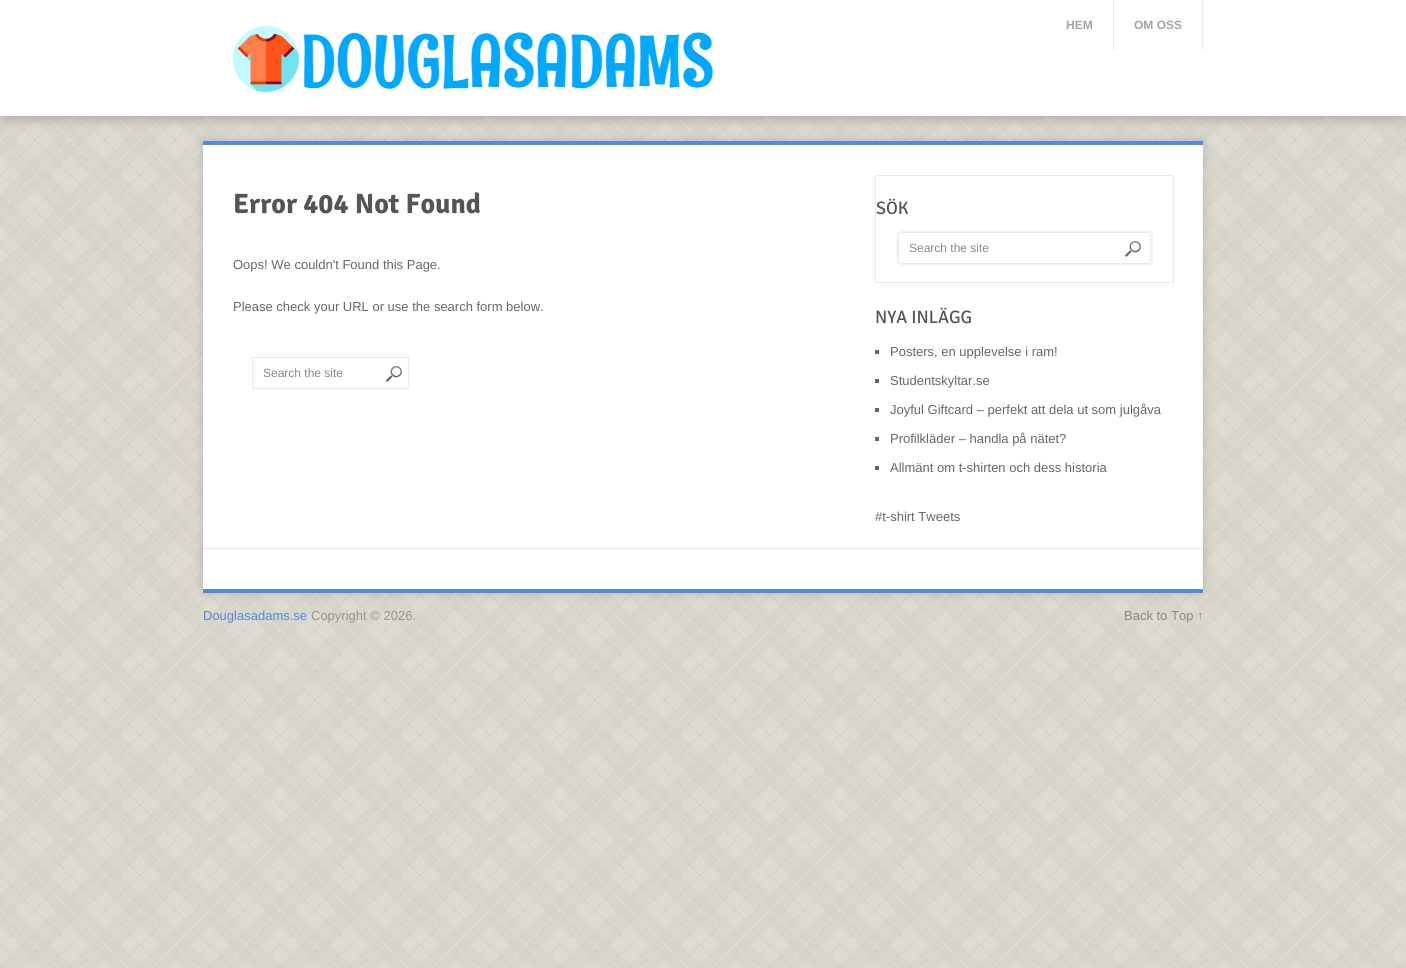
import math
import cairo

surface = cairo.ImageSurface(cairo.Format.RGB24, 1406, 968)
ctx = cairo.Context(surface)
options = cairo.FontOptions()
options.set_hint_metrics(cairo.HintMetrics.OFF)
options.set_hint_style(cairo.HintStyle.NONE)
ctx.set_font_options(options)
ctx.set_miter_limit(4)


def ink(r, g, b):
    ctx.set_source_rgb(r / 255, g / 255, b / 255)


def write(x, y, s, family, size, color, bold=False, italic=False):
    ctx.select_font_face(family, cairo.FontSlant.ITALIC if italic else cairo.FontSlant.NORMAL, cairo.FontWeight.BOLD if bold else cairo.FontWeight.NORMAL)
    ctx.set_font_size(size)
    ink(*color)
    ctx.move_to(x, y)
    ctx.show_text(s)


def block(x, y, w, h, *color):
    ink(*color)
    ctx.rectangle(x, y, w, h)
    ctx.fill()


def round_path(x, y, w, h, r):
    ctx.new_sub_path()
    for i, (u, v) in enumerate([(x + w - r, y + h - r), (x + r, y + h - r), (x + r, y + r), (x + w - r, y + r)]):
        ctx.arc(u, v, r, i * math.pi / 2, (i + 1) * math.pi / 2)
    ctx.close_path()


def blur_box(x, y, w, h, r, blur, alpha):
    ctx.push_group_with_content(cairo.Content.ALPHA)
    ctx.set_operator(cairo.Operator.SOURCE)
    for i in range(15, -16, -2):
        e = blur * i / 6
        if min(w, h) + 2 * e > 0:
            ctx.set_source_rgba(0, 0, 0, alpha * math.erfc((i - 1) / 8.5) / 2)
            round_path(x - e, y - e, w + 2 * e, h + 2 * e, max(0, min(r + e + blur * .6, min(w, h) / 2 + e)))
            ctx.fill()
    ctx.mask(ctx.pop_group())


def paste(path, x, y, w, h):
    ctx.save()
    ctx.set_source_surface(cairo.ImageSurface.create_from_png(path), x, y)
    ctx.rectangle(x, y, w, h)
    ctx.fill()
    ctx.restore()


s1 = dict(family="Liberation Sans", size=12, color=(163, 163, 163), bold=True)
s2 = dict(family="Signika", size=28, color=(85, 85, 85), bold=True)
s3 = dict(family="Liberation Sans", size=13, color=(102, 102, 102))
s4 = dict(family="Liberation Sans", size=12, color=(136, 136, 136))
s5 = dict(family="Signika", size=18, color=(85, 85, 85))
s6 = dict(family="Liberation Sans", size=13, color=(83, 138, 217))
s7 = dict(family="Liberation Sans", size=13, color=(151, 148, 148))
s8 = dict(family="Liberation Sans", size=13, color=(136, 136, 136))

ink(255, 255, 255)
ctx.paint()
paste("pic1.png", 0, 116, 1406, 852)
ink(50, 50, 50)
blur_box(0, 5, 1406, 116, 0, 5, 0.22)
block(0, 0, 1406, 116, 255, 255, 255)
block(1113, 0, 1, 50, 233, 233, 233)
write(1066, 29, "HEM", **s1)
block(1202, 0, 1, 50, 233, 233, 233)
write(1134, 29, "OM OSS", **s1)
paste("pic2.png", 233, 26, 480, 66)
ink(50, 50, 50)
blur_box(203, 141, 1000, 407, 0, 5, 0.22)
block(203, 145, 1000, 403, 255, 255, 255)
block(203, 141, 1000, 4, 83, 138, 217)
write(233, 213, "Error 404 Not Found", **s2)
write(233, 269, "Oops! We couldn't Found this Page.", **s3)
write(233, 311, "Please check your URL or use the search form below.", **s3)
paste("pic3.png", 386, 366, 16, 16)
ctx.rectangle(252.5, 357.5, 156, 31)
ink(233, 233, 233)
ctx.set_line_width(1)
ctx.stroke()
write(263, 377, "Search the site", **s4)
ctx.rectangle(875.5, 175.5, 298, 107)
ink(233, 233, 233)
ctx.stroke()
write(876, 214, "SÖK", **s5)
round_path(897, 231, 255, 34, 4)
ink(245, 245, 245)
ctx.set_line_width(2)
ctx.stroke()
paste("pic3.png", 1125, 241, 16, 16)
round_path(898.5, 232.5, 252, 31, 2.5)
ink(233, 233, 233)
ctx.set_line_width(1)
ctx.stroke()
write(909, 252, "Search the site", **s4)
write(875, 323, "NYA INLÄGG", **s5)
block(875, 350, 4, 4, 102, 102, 102)
write(890, 356, "Posters, en upplevelse i ram!", **s3)
block(875, 379, 4, 4, 102, 102, 102)
write(890, 385, "Studentskyltar.se", **s3)
block(875, 408, 4, 4, 102, 102, 102)
write(890, 414, "Joyful Giftcard – perfekt att dela ut som julgåva", **s3)
block(875, 437, 4, 4, 102, 102, 102)
write(890, 443, "Profilkläder – handla på nätet?", **s3)
block(875, 466, 4, 4, 102, 102, 102)
write(890, 472, "Allmänt om t-shirten och dess historia", **s3)
write(875, 521, "#t-shirt Tweets", **s3)
ctx.save()
ctx.rectangle(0, 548, 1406, 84)
ctx.clip()
ink(50, 50, 50)
blur_box(203, 548, 1000, 45, 0, 5, 0.22)
ctx.restore()
block(203, 549, 1000, 40, 255, 255, 255)
block(203, 589, 1000, 4, 83, 138, 217)
block(203, 548, 1000, 1, 233, 233, 233)
write(203, 620, "Douglasadams.se", **s6)
write(311, 620, "Copyright © 2026.", **s7)
write(1124, 620, "Back to Top ↑", **s8)
surface.write_to_png("screenshot.png")
